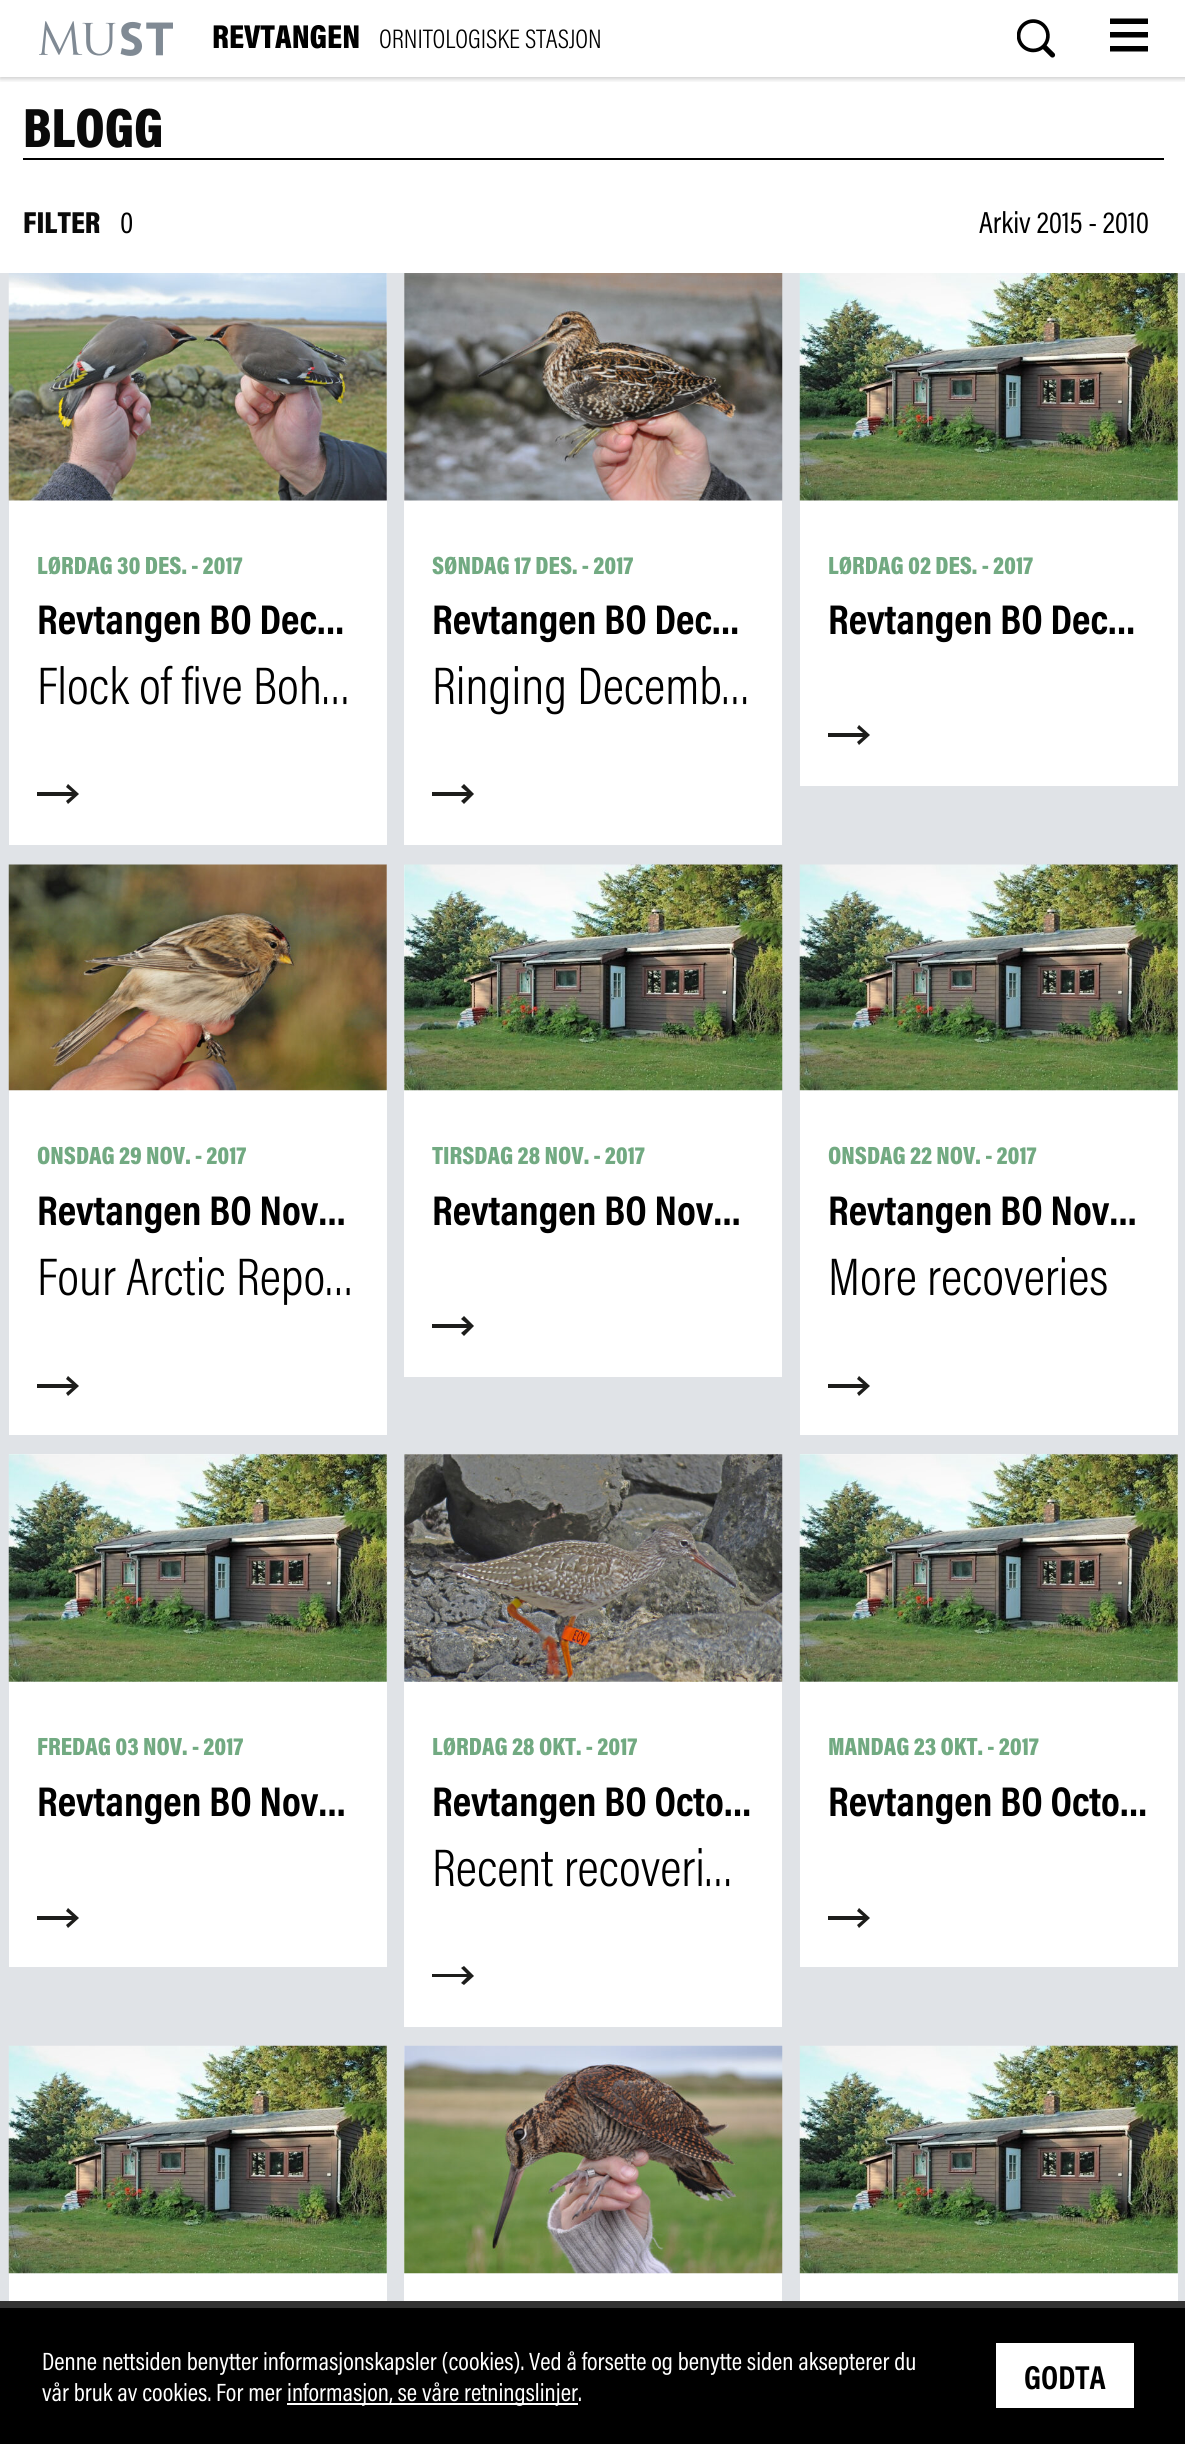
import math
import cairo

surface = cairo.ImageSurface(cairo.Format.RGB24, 1185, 2444)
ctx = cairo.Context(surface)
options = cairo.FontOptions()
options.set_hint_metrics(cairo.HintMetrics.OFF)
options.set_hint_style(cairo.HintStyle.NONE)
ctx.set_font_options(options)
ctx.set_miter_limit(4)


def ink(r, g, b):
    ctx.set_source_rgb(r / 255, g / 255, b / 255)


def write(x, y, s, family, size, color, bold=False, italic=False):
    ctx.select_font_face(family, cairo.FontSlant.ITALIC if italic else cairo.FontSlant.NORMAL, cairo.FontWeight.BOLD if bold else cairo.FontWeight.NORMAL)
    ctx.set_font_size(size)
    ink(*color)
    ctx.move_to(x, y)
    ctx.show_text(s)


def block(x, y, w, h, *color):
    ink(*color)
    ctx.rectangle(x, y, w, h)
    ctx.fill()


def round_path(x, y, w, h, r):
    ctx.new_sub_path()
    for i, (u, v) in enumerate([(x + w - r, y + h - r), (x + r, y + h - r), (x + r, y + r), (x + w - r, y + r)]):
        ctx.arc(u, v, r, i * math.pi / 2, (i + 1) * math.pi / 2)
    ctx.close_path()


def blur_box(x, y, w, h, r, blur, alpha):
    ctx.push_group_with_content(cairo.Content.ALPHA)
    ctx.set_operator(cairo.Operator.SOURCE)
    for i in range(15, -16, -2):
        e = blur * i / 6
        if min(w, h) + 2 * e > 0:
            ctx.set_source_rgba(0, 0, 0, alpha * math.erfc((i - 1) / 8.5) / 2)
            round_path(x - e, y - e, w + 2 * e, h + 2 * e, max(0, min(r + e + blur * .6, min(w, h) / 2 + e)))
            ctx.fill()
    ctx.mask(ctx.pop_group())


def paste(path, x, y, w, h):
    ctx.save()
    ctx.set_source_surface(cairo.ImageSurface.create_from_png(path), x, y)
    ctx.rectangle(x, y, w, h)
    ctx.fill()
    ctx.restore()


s1 = dict(family="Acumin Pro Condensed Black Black", size=33.5, color=(0, 0, 0))
s2 = dict(family="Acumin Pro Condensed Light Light", size=27, color=(0, 0, 0))
s3 = dict(family="Acumin Pro Condensed Black Black", size=56, color=(10, 10, 10))
s4 = dict(family="Acumin Pro Condensed Black Black", size=30.75, color=(10, 10, 10))
s5 = dict(family="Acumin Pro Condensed", size=30.75, color=(0, 0, 0))
s6 = dict(family="Acumin Pro Condensed Black Black", size=25.2, color=(114, 170, 130))
s7 = dict(family="Acumin Pro Condensed", size=42, color=(0, 0, 0), bold=True)
s8 = dict(family="Acumin Pro Condensed Light Light", size=53.25, color=(0, 0, 0))
s9 = dict(family="Acumin Pro Condensed", size=25.2, color=(255, 255, 255))
s10 = dict(family="Acumin Pro Condensed", size=33.5, color=(0, 0, 0), bold=True)

ink(255, 255, 255)
ctx.paint()
ctx.save()
ctx.rectangle(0, 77, 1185, 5)
ctx.clip()
ink(0, 0, 0)
blur_box(0, 2, 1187, 77, 0, 2.5, 0.2)
ctx.restore()
paste("pic1.png", 39, 21, 134, 35)
write(212, 48, "REVTANGEN", **s1)
write(379, 48, "ORNITOLOGISKE STASJON", **s2)
paste("pic2.png", 1017, 19, 39, 39)
ctx.save()
ctx.rectangle(1110, 16, 38, 38)
ctx.clip()
ctx.set_fill_rule(cairo.FillRule.EVEN_ODD)
ctx.new_path()
ctx.move_to(1110, 24)
ctx.line_to(1148.5, 24)
ctx.line_to(1148.5, 18.5)
ctx.line_to(1110, 18.5)
ctx.close_path()
ctx.move_to(1110, 37.5)
ctx.line_to(1148.5, 37.5)
ctx.line_to(1148.5, 32)
ctx.line_to(1110, 32)
ctx.close_path()
ctx.move_to(1110, 51.5)
ctx.line_to(1148.5, 51.5)
ctx.line_to(1148.5, 46)
ctx.line_to(1110, 46)
ctx.close_path()
ctx.fill()
ctx.restore()
block(23, 158, 1141, 2, 0, 0, 0)
write(23, 147, "BLOGG", **s3)
write(23, 233, "FILTER", **s4)
write(120, 233, "0", **s5)
write(979, 233, "Arkiv 2015 - 2010", **s5)
block(0, 273, 1185, 2028, 224, 227, 231)
block(9, 273, 378, 572, 255, 255, 255)
paste("pic3.png", 8, 273, 379, 228)
write(37, 574, "LØRDAG 30 DES. - 2017", **s6)
write(37, 634, "Revtangen BO Dec…", **s7)
write(37, 704, "Flock of five Boh…", **s8)
ink(29, 29, 27)
ctx.set_fill_rule(cairo.FillRule.EVEN_ODD)
ctx.new_path()
ctx.move_to(68, 784)
ctx.line_to(66, 787)
ctx.line_to(72, 792)
ctx.line_to(37, 792)
ctx.line_to(37, 796)
ctx.line_to(72, 796)
ctx.line_to(66, 801)
ctx.line_to(68, 804)
ctx.line_to(79, 794)
ctx.close_path()
ctx.fill()
block(404, 273, 378, 572, 255, 255, 255)
paste("pic4.png", 404, 273, 379, 228)
write(432, 574, "SØNDAG 17 DES. - 2017", **s6)
write(432, 634, "Revtangen BO Dec…", **s7)
write(432, 704, "Ringing Decemb…", **s8)
ink(29, 29, 27)
ctx.new_path()
ctx.move_to(464, 784)
ctx.line_to(461, 787)
ctx.line_to(467, 792)
ctx.line_to(432, 792)
ctx.line_to(432, 796)
ctx.line_to(467, 796)
ctx.line_to(461, 801)
ctx.line_to(464, 804)
ctx.line_to(474, 794)
ctx.close_path()
ctx.fill()
block(800, 273, 378, 513, 255, 255, 255)
paste("pic5.png", 799, 273, 379, 228)
write(828, 574, "LØRDAG 02 DES. - 2017", **s6)
write(828, 634, "Revtangen BO Dec…", **s7)
ink(29, 29, 27)
ctx.new_path()
ctx.move_to(859, 725)
ctx.line_to(857, 728)
ctx.line_to(863, 733)
ctx.line_to(828, 733)
ctx.line_to(828, 737)
ctx.line_to(863, 737)
ctx.line_to(857, 742)
ctx.line_to(859, 745)
ctx.line_to(870, 735)
ctx.close_path()
ctx.fill()
block(9, 865, 378, 570, 255, 255, 255)
paste("pic6.png", 8, 864, 379, 227)
write(37, 1164, "ONSDAG 29 NOV. - 2017", **s6)
write(37, 1225, "Revtangen BO Nov…", **s7)
write(37, 1295, "Four Arctic Repo…", **s8)
ink(29, 29, 27)
ctx.new_path()
ctx.move_to(68, 1376)
ctx.line_to(66, 1379)
ctx.line_to(72, 1384)
ctx.line_to(37, 1384)
ctx.line_to(37, 1388)
ctx.line_to(72, 1388)
ctx.line_to(66, 1393)
ctx.line_to(68, 1396)
ctx.line_to(79, 1386)
ctx.close_path()
ctx.fill()
block(404, 865, 378, 512, 255, 255, 255)
paste("pic7.png", 404, 864, 379, 227)
write(432, 1164, "TIRSDAG 28 NOV. - 2017", **s6)
write(432, 1225, "Revtangen BO Nov…", **s7)
ink(29, 29, 27)
ctx.new_path()
ctx.move_to(464, 1316)
ctx.line_to(461, 1319)
ctx.line_to(467, 1324)
ctx.line_to(432, 1324)
ctx.line_to(432, 1328)
ctx.line_to(467, 1328)
ctx.line_to(461, 1333)
ctx.line_to(464, 1336)
ctx.line_to(474, 1326)
ctx.close_path()
ctx.fill()
block(800, 865, 378, 570, 255, 255, 255)
paste("pic8.png", 799, 864, 379, 227)
write(828, 1164, "ONSDAG 22 NOV. - 2017", **s6)
write(828, 1225, "Revtangen BO Nov…", **s7)
write(828, 1295, "More recoveries", **s8)
ink(29, 29, 27)
ctx.new_path()
ctx.move_to(859, 1376)
ctx.line_to(857, 1379)
ctx.line_to(863, 1384)
ctx.line_to(828, 1384)
ctx.line_to(828, 1388)
ctx.line_to(863, 1388)
ctx.line_to(857, 1393)
ctx.line_to(859, 1396)
ctx.line_to(870, 1386)
ctx.close_path()
ctx.fill()
block(9, 1454, 378, 513, 255, 255, 255)
paste("pic9.png", 8, 1454, 379, 228)
write(37, 1755, "FREDAG 03 NOV. - 2017", **s6)
write(37, 1816, "Revtangen BO Nov…", **s7)
ink(29, 29, 27)
ctx.new_path()
ctx.move_to(68, 1908)
ctx.line_to(66, 1911)
ctx.line_to(72, 1916)
ctx.line_to(37, 1916)
ctx.line_to(37, 1920)
ctx.line_to(72, 1920)
ctx.line_to(66, 1925)
ctx.line_to(68, 1928)
ctx.line_to(79, 1918)
ctx.close_path()
ctx.fill()
block(404, 1454, 378, 573, 255, 255, 255)
paste("pic10.png", 404, 1454, 379, 228)
write(432, 1755, "LØRDAG 28 OKT. - 2017", **s6)
write(432, 1816, "Revtangen BO Octo…", **s7)
write(432, 1886, "Recent recoveri…", **s8)
ink(29, 29, 27)
ctx.new_path()
ctx.move_to(464, 1966)
ctx.line_to(461, 1968)
ctx.line_to(467, 1974)
ctx.line_to(432, 1974)
ctx.line_to(432, 1977)
ctx.line_to(467, 1977)
ctx.line_to(461, 1983)
ctx.line_to(464, 1985)
ctx.line_to(474, 1976)
ctx.close_path()
ctx.fill()
block(800, 1454, 378, 513, 255, 255, 255)
paste("pic11.png", 799, 1454, 379, 228)
write(828, 1755, "MANDAG 23 OKT. - 2017", **s6)
write(828, 1816, "Revtangen BO Octo…", **s7)
ink(29, 29, 27)
ctx.new_path()
ctx.move_to(859, 1908)
ctx.line_to(857, 1911)
ctx.line_to(863, 1916)
ctx.line_to(828, 1916)
ctx.line_to(828, 1920)
ctx.line_to(863, 1920)
ctx.line_to(857, 1925)
ctx.line_to(859, 1928)
ctx.line_to(870, 1918)
ctx.close_path()
ctx.fill()
block(9, 2046, 378, 255, 255, 255, 255)
paste("pic12.png", 8, 2045, 379, 229)
block(404, 2046, 378, 255, 255, 255, 255)
paste("pic13.png", 404, 2045, 379, 229)
block(800, 2046, 378, 255, 255, 255, 255)
paste("pic14.png", 799, 2045, 379, 229)
block(0, 2308, 1185, 136, 0, 0, 0)
block(0, 2301, 1185, 7, 51, 51, 51)
write(42, 2370, "Denne nettsiden benytter informasjonskapsler (cookies). Ved å forsette og benytte siden aksepterer du", **s9)
write(42, 2401, "vår bruk av cookies. For mer", **s9)
block(287, 2403, 291, 2, 255, 255, 255)
write(287, 2401, "informasjon, se våre retningslinjer.", **s9)
block(996, 2343, 138, 65, 255, 255, 255)
write(1024, 2389, "GODTA", **s10)
surface.write_to_png("screenshot.png")
